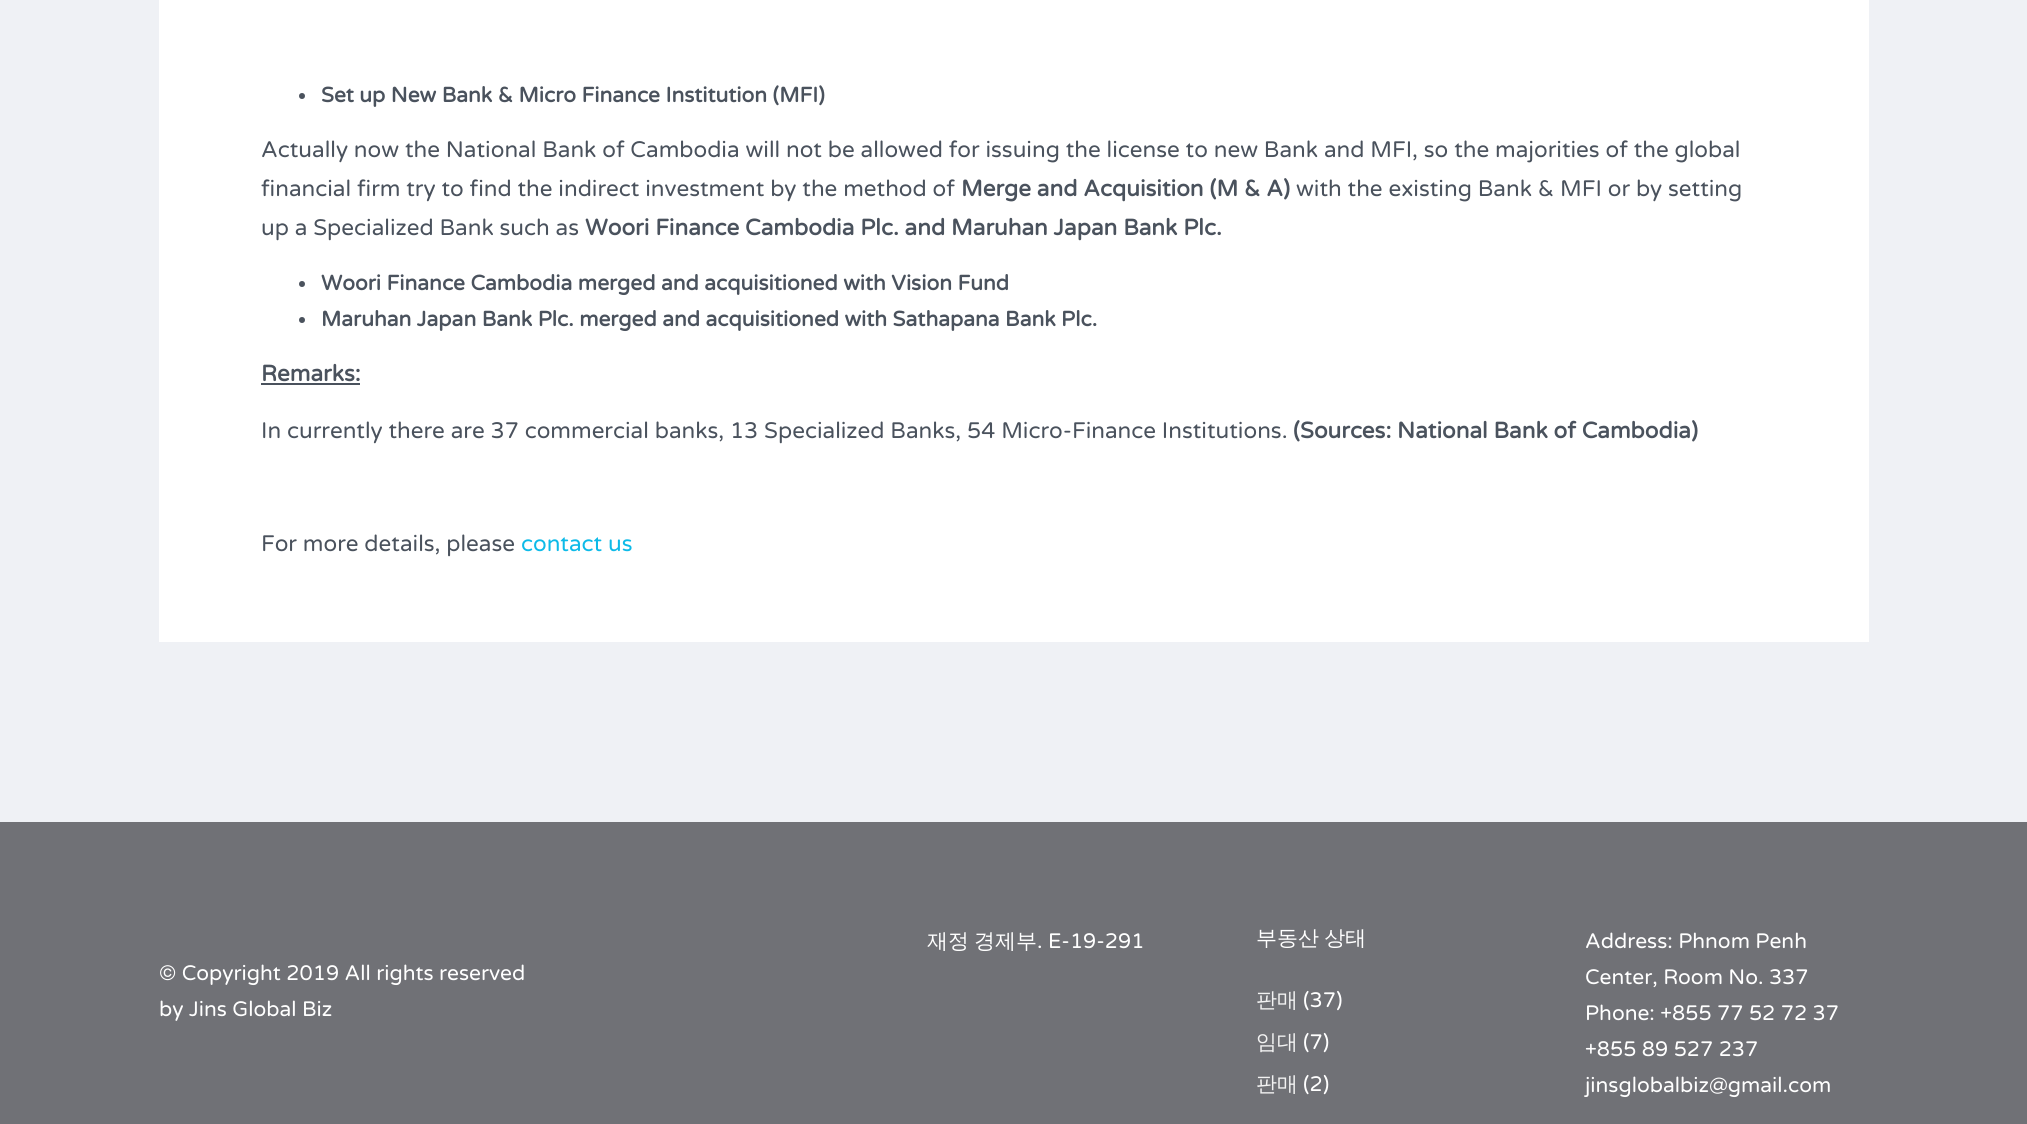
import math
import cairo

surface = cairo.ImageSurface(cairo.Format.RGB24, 2027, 1124)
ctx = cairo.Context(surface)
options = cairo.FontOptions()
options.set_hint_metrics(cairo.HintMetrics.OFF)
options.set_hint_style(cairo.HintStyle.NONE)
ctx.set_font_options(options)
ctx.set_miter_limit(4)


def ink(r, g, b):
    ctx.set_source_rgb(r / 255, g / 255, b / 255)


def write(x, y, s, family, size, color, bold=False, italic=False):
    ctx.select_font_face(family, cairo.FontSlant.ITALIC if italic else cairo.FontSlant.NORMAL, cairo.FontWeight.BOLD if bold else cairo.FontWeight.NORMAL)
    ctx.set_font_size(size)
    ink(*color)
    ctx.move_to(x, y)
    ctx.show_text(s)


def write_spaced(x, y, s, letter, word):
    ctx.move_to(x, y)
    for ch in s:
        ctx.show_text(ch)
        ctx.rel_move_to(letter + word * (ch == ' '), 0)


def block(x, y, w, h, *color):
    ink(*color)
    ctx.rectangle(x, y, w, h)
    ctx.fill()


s1 = dict(family="Varela Round", size=21, color=(74, 82, 93), bold=True)
s2 = dict(family="Varela Round", size=22.5, color=(74, 82, 93))
s3 = dict(family="Varela Round", size=22.5, color=(74, 82, 93), bold=True)
s4 = dict(family="Varela Round", size=22.5, color=(13, 186, 232))
s5 = dict(family="Varela Round", size=21, color=(255, 255, 255))
s6 = dict(family="WenQuanYi Zen Hei Medium", size=21, color=(255, 255, 255))
s7 = dict(family="WenQuanYi Zen Hei Medium", size=21, color=(242, 242, 242))

ink(239, 241, 245)
ctx.paint()
block(159, 0, 1710, 642, 255, 255, 255)
ink(74, 82, 93)
ctx.arc(302, 96, 3, 0, 2 * math.pi)
ctx.fill()
write(321, 102, "Set up New Bank & Micro Finance Institution (MFI)", **s1)
write(261, 157, "Actually now the National Bank of Cambodia will not be allowed for issuing the license to new Bank and MFI, so the majorities of the global", **s2)
write(261, 196, "financial firm try to find the indirect investment by the method of", **s2)
write(961, 196, "Merge and Acquisition (M & A)", **s3)
write(1296, 196, "with the existing Bank & MFI or by setting", **s2)
write(261, 235, "up a Specialized Bank such as", **s2)
write(585, 235, "Woori Finance Cambodia Plc. and Maruhan Japan Bank Plc.", **s3)
ctx.new_path()
ctx.arc(302, 284, 3, 0, 2 * math.pi)
ctx.fill()
write(321, 290, "Woori Finance Cambodia merged and acquisitioned with Vision Fund", **s1)
ctx.new_path()
ctx.arc(302, 320, 3, 0, 2 * math.pi)
ctx.fill()
write(321, 326, "Maruhan Japan Bank Plc. merged and acquisitioned with Sathapana Bank Plc.", **s1)
write(261, 381, "Remarks:", **s3)
block(261, 383, 99, 2, 74, 82, 93)
write(261, 438, "In currently there are 37 commercial banks, 13 Specialized Banks, 54 Micro-Finance Institutions.", **s2)
write(1293, 438, "(Sources: National Bank of Cambodia)", **s3)
write(261, 551, "For more details, please", **s2)
write(521, 551, "contact us", **s4)
block(0, 822, 2027, 302, 112, 113, 118)
write(159, 980, "© Copyright 2019 All rights reserved", **s5)
write(159, 1016, "by Jins Global Biz", **s5)
write(927, 948, "재정", **s6)
write(974, 948, "경제부", **s6)
write(1037, 948, ". E-19-291", **s5)
ctx.select_font_face("WenQuanYi Zen Hei Medium")
write_spaced(1256, 945, "부동산 상태", 0, -1)
write(1256, 1007, "판매", **s7)
write(1303, 1007, "(37)", **s5)
write(1256, 1049, "임대", **s7)
write(1303, 1049, "(7)", **s5)
write(1256, 1091, "판매", **s7)
write(1303, 1091, "(2)", **s5)
write(1585, 948, "Address: Phnom Penh", **s5)
write(1585, 984, "Center, Room No. 337", **s5)
write(1585, 1020, "Phone: +855 77 52 72 37", **s5)
write(1585, 1056, "+855 89 527 237", **s5)
write(1585, 1092, "jinsglobalbiz@gmail.com", **s5)
surface.write_to_png("screenshot.png")
